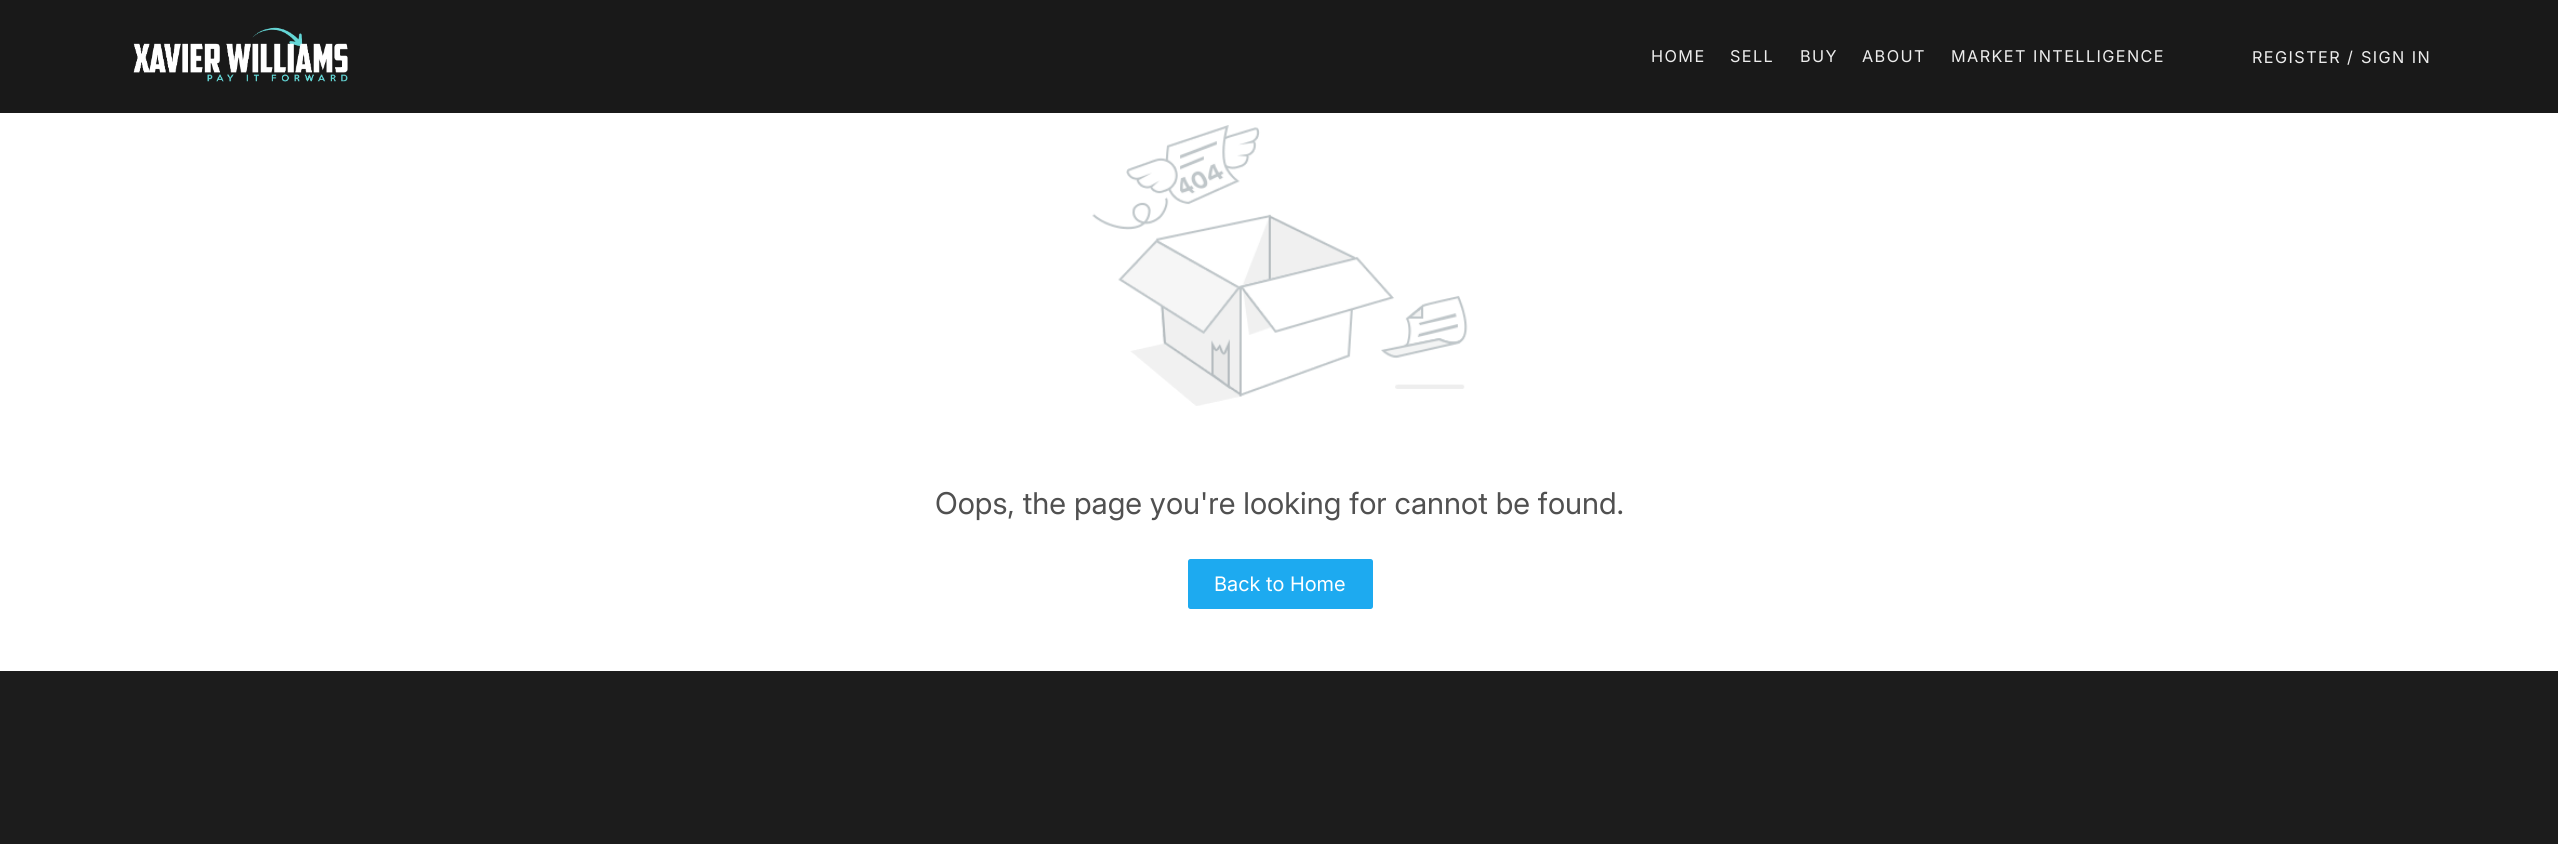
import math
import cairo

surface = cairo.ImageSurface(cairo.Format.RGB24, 2558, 844)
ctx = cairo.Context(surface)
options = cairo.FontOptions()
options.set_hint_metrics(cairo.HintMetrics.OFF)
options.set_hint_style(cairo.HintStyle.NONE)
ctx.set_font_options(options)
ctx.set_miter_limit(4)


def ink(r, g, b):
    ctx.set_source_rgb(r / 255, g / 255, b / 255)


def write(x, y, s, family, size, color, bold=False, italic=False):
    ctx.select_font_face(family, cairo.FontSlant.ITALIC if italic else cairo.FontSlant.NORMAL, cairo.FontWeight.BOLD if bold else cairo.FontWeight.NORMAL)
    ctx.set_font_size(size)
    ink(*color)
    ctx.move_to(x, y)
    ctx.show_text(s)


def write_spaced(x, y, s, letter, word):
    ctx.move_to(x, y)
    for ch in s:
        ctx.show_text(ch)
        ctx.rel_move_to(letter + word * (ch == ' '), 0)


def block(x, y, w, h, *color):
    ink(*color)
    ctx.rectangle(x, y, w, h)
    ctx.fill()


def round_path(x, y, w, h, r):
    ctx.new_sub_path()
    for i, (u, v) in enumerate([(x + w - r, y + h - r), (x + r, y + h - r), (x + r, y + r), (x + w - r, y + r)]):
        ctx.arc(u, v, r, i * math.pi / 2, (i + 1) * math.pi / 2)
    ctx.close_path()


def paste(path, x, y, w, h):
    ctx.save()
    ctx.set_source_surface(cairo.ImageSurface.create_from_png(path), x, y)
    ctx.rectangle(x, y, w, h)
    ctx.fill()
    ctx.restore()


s1 = dict(family="Inter", size=30, color=(80, 80, 80))
s2 = dict(family="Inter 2", size=20, color=(255, 255, 255))

ink(255, 255, 255)
ctx.paint()
block(0, 0, 2558, 113, 25, 25, 25)
paste("pic1.png", 133, 27, 215, 55)
ctx.select_font_face("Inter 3")
ctx.set_font_size(16.25)
ink(236, 236, 236)
write_spaced(1651, 62, "HOME", 1.4, 0)
write_spaced(1730, 62, "SELL", 1.4, 0)
write_spaced(1800, 62, "BUY", 1.4, 0)
write_spaced(1862, 62, "ABOUT", 1.4, 0)
write_spaced(1951, 62, "MARKET INTELLIGENCE", 1.4, 0)
write_spaced(2252, 63, "REGISTER", 1.4, 0)
write_spaced(2347, 63, "/", 1.4, 0)
write_spaced(2361, 63, "SIGN IN", 1.4, 0)
paste("pic2.png", 1092, 125, 376, 281)
write(935, 514, "Oops, the page you're looking for cannot be found.", **s1)
ink(29, 170, 240)
round_path(1188, 559, 185, 50, 2.5)
ctx.fill()
write(1214, 591, "Back to Home", **s2)
block(0, 671, 2558, 173, 28, 28, 28)
surface.write_to_png("screenshot.png")
